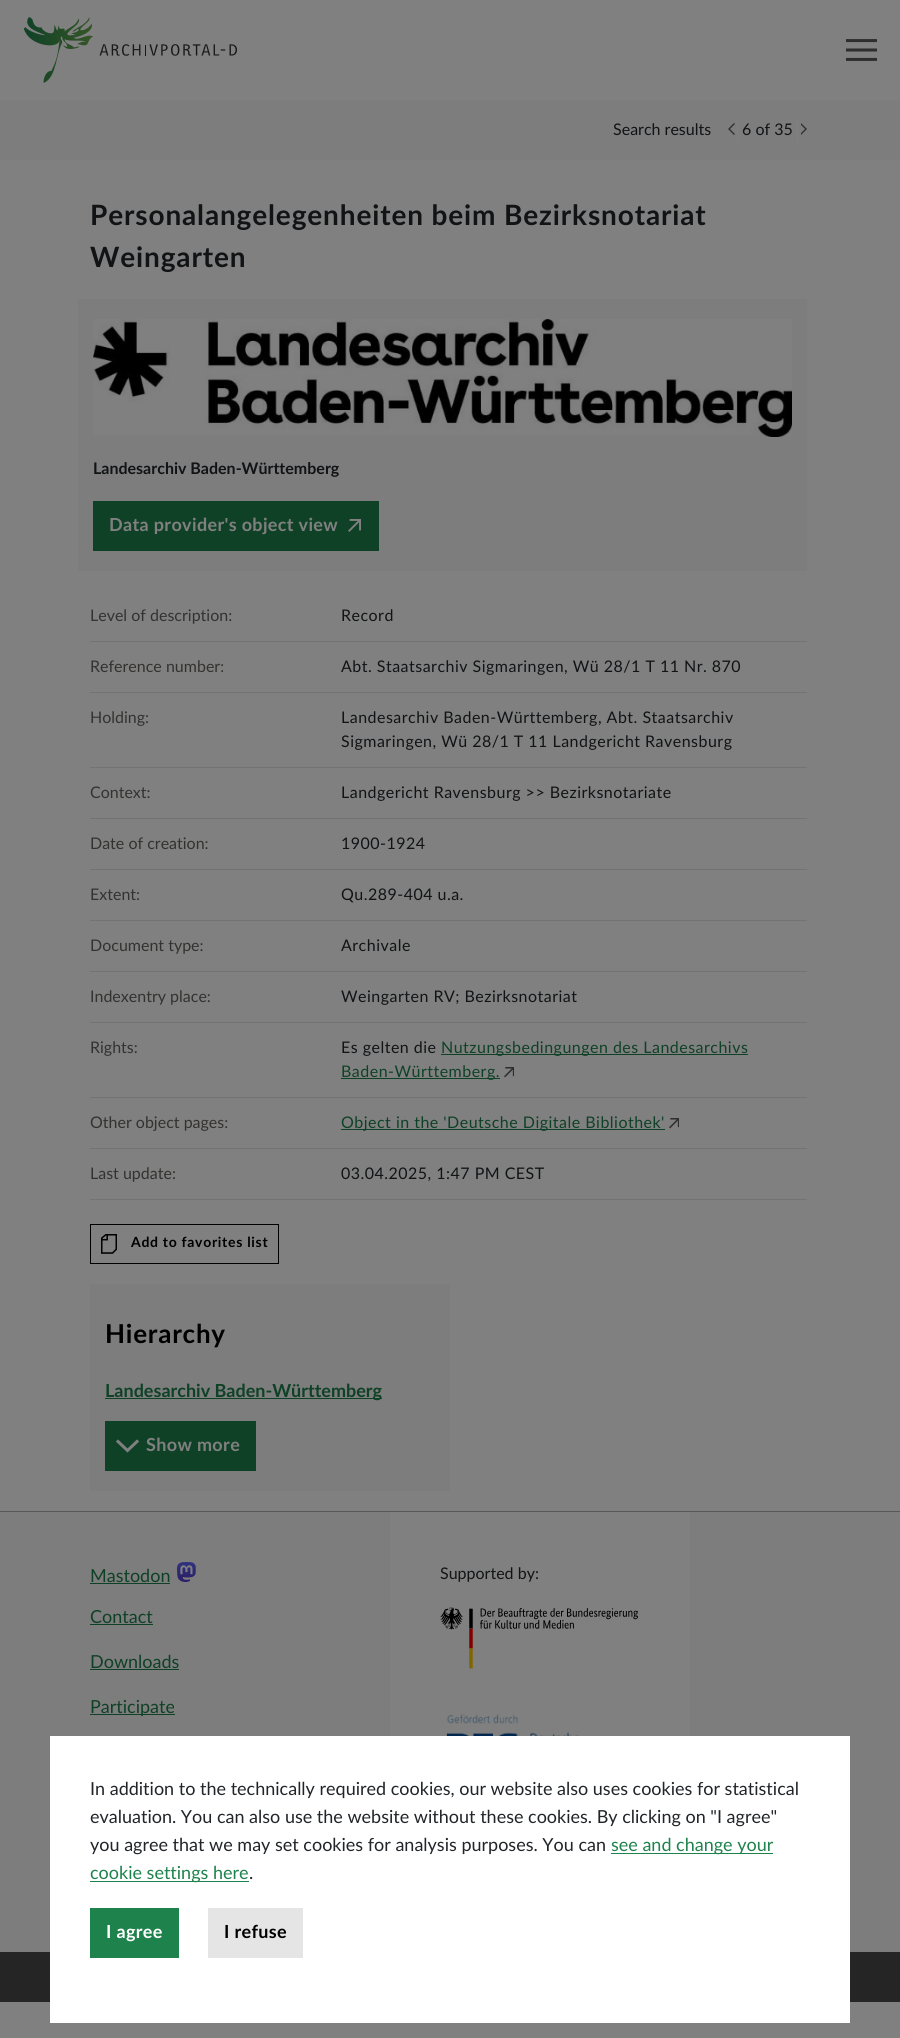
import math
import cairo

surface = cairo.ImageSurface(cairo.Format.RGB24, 900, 2038)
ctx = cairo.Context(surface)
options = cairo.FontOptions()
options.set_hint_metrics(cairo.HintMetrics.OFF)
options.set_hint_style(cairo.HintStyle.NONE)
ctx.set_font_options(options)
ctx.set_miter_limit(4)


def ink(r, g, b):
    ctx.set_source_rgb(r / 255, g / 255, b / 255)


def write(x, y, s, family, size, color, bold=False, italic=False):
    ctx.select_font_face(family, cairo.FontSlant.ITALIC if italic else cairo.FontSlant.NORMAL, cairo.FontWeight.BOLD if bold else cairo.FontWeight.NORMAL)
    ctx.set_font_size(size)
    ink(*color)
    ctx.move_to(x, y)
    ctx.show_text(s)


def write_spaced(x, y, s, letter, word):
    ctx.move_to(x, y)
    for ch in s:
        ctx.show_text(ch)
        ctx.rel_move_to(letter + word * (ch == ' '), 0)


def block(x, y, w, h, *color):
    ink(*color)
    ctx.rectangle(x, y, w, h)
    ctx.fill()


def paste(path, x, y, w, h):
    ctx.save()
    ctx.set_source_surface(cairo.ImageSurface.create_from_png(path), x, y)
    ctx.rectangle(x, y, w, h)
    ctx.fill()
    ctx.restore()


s1 = dict(family="Lato", size=16, color=(17, 19, 21))
s2 = dict(family="Lato", size=16, color=(17, 19, 21), bold=True)
s3 = dict(family="Lato", size=16, color=(51, 50, 49))
s4 = dict(family="Lato", size=18, color=(15, 65, 38), bold=True)
s5 = dict(family="Lato", size=18, color=(15, 65, 38))
s6 = dict(family="Lato", size=18, color=(33, 37, 41))
s7 = dict(family="Lato", size=18, color=(30, 130, 76))

ink(128, 128, 128)
ctx.paint()
paste("pic1.png", 24, 17, 213, 66)
paste("pic2.png", 846, 39, 31, 22)
block(0, 100, 900, 60, 125, 125, 125)
write(613, 135, "Search results", **s1)
block(737, 118, 1, 24, 128, 128, 128)
paste("pic3.png", 728, 123, 7, 12)
write(742, 135, "6 of 35", **s1)
block(797, 118, 1, 24, 128, 128, 128)
paste("pic4.png", 801, 123, 6, 12)
ctx.select_font_face("Lato", cairo.FontSlant.NORMAL, cairo.FontWeight.BOLD)
ctx.set_font_size(28)
ink(17, 19, 21)
write_spaced(90, 225, "Personalangelegenheiten beim Bezirksnotariat", 0.85, 0)
write_spaced(90, 267, "Weingarten", 0.85, 0)
block(78, 299, 729, 272, 125, 125, 125)
paste("pic5.png", 93, 319, 699, 118)
write(93, 474, "Landesarchiv Baden-Württemberg", **s2)
block(93, 501, 286, 50, 15, 65, 38)
ctx.set_font_size(18)
ink(128, 128, 128)
write_spaced(109, 531, "Data provider's object view", 0.35, 0)
paste("pic6.png", 348, 519, 13, 13)
block(90, 641, 717, 1, 115, 115, 115)
write(90, 621, "Level of description:", **s3)
ink(17, 19, 21)
write_spaced(341, 621, "Record", 0.48, 0)
block(90, 692, 717, 1, 115, 115, 115)
write(90, 672, "Reference number:", **s3)
ink(17, 19, 21)
write_spaced(341, 672, "Abt. Staatsarchiv Sigmaringen, Wü 28/1 T 11 Nr. 870", 0.48, 0)
block(90, 767, 717, 1, 115, 115, 115)
write(90, 723, "Holding:", **s3)
ink(17, 19, 21)
write_spaced(341, 723, "Landesarchiv Baden-Württemberg, Abt. Staatsarchiv", 0.48, 0)
write_spaced(341, 747, "Sigmaringen, Wü 28/1 T 11 Landgericht Ravensburg", 0.48, 0)
block(90, 818, 717, 1, 115, 115, 115)
write(90, 798, "Context:", **s3)
ink(17, 19, 21)
write_spaced(341, 798, "Landgericht Ravensburg >> Bezirksnotariate", 0.48, 0)
block(90, 869, 717, 1, 115, 115, 115)
write(90, 849, "Date of creation:", **s3)
ink(17, 19, 21)
write_spaced(341, 849, "1900-1924", 0.48, 0)
block(90, 920, 717, 1, 115, 115, 115)
write(90, 900, "Extent:", **s3)
ink(17, 19, 21)
write_spaced(341, 900, "Qu.289-404 u.a.", 0.48, 0)
block(90, 971, 717, 1, 115, 115, 115)
write(90, 951, "Document type:", **s3)
ink(17, 19, 21)
write_spaced(341, 951, "Archivale", 0.48, 0)
block(90, 1022, 717, 1, 115, 115, 115)
write(90, 1002, "Indexentry place:", **s3)
ink(17, 19, 21)
write_spaced(341, 1002, "Weingarten RV; Bezirksnotariat", 0.48, 0)
block(90, 1097, 717, 1, 115, 115, 115)
write(90, 1053, "Rights:", **s3)
ink(17, 19, 21)
write_spaced(341, 1053, "Es gelten die", 0.48, 0)
block(441, 1054, 307, 1, 15, 65, 38)
write_spaced(441, 1053, "Nutzungsbedingungen des Landesarchivs", 0.48, 0)
block(341, 1078, 159, 1, 15, 65, 38)
write_spaced(341, 1077, "Baden-Württemberg.", 0.48, 0)
paste("pic7.png", 504, 1067, 10, 11)
block(90, 1148, 717, 1, 115, 115, 115)
write(90, 1128, "Other object pages:", **s3)
block(341, 1129, 324, 1, 15, 65, 38)
write_spaced(341, 1128, "Object in the 'Deutsche Digitale Bibliothek'", 0.48, 0)
paste("pic7.png", 669, 1118, 10, 11)
block(90, 1199, 717, 1, 115, 115, 115)
write(90, 1179, "Last update:", **s3)
ink(17, 19, 21)
write_spaced(341, 1179, "03.04.2025, 1:47 PM CEST", 0.48, 0)
ctx.rectangle(90.5, 1224.5, 188, 39)
ink(0, 0, 0)
ctx.set_line_width(1)
ctx.stroke()
paste("pic8.png", 101, 1234, 16, 20)
ctx.select_font_face("Lato", cairo.FontSlant.NORMAL, cairo.FontWeight.BOLD)
ctx.set_font_size(14)
write_spaced(131, 1247, "Add to favorites list", 0.7, 0)
block(90, 1284, 360, 207, 125, 125, 125)
ctx.set_font_size(26)
ink(0, 0, 0)
write_spaced(105, 1343, "Hierarchy", 0.75, 0)
block(105, 1398, 277, 1, 15, 65, 38)
write(105, 1397, "Landesarchiv Baden-Württemberg", **s4)
block(105, 1421, 151, 50, 15, 65, 38)
ctx.new_path()
ctx.move_to(118, 1441.5)
ctx.line_to(127.5, 1450.5)
ctx.line_to(137, 1441.5)
ink(128, 128, 128)
ctx.set_line_width(3)
ctx.set_line_cap(cairo.LineCap.SQUARE)
ctx.stroke()
write_spaced(146, 1451, "Show more", 0.35, 0)
block(0, 1512, 900, 440, 125, 125, 125)
block(0, 1511, 900, 1, 90, 87, 87)
write(90, 1582, "Mastodon", **s5)
block(90, 1583, 80, 1, 15, 65, 38)
paste("pic9.png", 177, 1562, 19, 20)
write(90, 1623, "Contact", **s5)
block(90, 1624, 63, 1, 15, 65, 38)
write(90, 1668, "Downloads", **s5)
block(90, 1669, 89, 1, 15, 65, 38)
block(90, 1714, 85, 1, 15, 65, 38)
write(90, 1713, "Participate", **s5)
block(390, 1512, 300, 224, 128, 128, 128)
write(440, 1579, "Supported by:", **s1)
paste("pic10.png", 440, 1607, 198, 62)
paste("pic11.png", 446, 1714, 218, 22)
block(0, 1952, 900, 50, 37, 37, 37)
block(50, 1736, 800, 287, 255, 255, 255)
write(90, 1795, "In addition to the technically required cookies, our website also uses cookies for statistical", **s6)
write(90, 1823, "evaluation. You can also use the website without these cookies. By clicking on \"I agree\"", **s6)
write(90, 1851, "you agree that we may set cookies for analysis purposes. You can", **s6)
block(611, 1853, 162, 1, 30, 130, 76)
write(611, 1851, "see and change your", **s7)
block(90, 1881, 159, 1, 30, 130, 76)
write(90, 1879, "cookie settings here", **s7)
write(249, 1879, ".", **s6)
block(90, 1908, 89, 50, 30, 130, 76)
ctx.select_font_face("Lato", cairo.FontSlant.NORMAL, cairo.FontWeight.BOLD)
ink(255, 255, 255)
write_spaced(106, 1938, "I agree", 0.35, 0)
block(208, 1908, 95, 50, 229, 229, 229)
ink(0, 0, 0)
write_spaced(224, 1938, "I refuse", 0.35, 0)
surface.write_to_png("screenshot.png")
